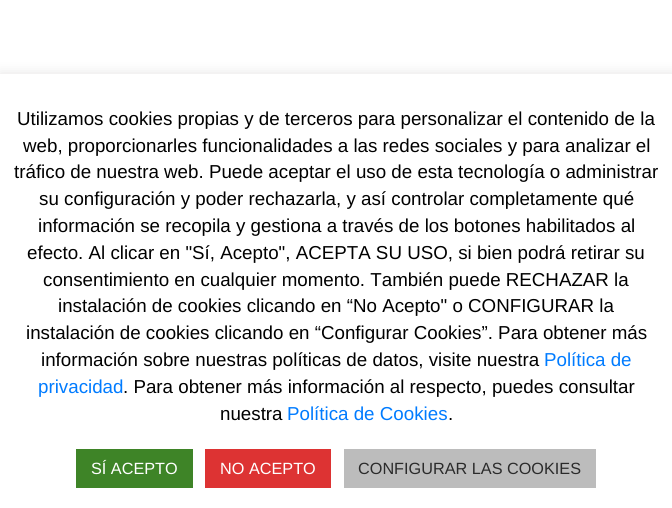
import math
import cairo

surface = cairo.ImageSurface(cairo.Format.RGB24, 672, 508)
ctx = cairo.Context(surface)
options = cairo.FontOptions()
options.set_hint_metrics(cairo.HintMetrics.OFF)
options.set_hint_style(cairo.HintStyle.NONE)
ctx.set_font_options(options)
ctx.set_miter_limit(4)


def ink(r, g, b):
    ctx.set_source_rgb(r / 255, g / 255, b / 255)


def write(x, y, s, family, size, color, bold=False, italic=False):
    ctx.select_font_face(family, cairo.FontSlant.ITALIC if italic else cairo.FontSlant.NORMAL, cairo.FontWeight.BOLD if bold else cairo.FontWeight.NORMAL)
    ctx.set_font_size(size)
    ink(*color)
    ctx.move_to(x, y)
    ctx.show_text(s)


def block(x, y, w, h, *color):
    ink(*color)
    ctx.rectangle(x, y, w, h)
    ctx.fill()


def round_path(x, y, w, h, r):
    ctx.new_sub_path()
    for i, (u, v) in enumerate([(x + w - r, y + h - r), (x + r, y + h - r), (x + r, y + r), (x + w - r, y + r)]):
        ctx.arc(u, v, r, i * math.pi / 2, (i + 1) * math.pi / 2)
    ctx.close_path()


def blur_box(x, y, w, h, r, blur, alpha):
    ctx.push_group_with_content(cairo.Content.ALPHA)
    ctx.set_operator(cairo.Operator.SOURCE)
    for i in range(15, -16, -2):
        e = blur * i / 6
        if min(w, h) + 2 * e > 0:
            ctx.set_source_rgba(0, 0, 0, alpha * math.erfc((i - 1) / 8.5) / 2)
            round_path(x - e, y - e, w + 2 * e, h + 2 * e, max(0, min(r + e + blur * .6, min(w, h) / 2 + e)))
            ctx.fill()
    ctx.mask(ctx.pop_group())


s1 = dict(family="Liberation Sans", size=18.75, color=(0, 0, 0))
s2 = dict(family="Liberation Sans", size=18.75, color=(0, 123, 255))
s3 = dict(family="Liberation Sans", size=16.25, color=(255, 255, 255))
s4 = dict(family="Liberation Sans", size=16.25, color=(43, 43, 43))

ink(255, 255, 255)
ctx.paint()
ink(172, 171, 171)
blur_box(0, 73, 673, 435, 0, 6, 0.3)
block(0, 74, 672, 434, 255, 255, 255)
write(17, 125, "Utilizamos cookies propias y de terceros para personalizar el contenido de la", **s1)
write(23, 152, "web, proporcionarles funcionalidades a las redes sociales y para analizar el", **s1)
write(14, 178, "tráfico de nuestra web. Puede aceptar el uso de esta tecnología o administrar", **s1)
write(39, 205, "su configuración y poder rechazarla, y así controlar completamente qué", **s1)
write(38, 232, "información se recopila y gestiona a través de los botones habilitados al", **s1)
write(27, 259, "efecto. Al clicar en \"Sí, Acepto\", ACEPTA SU USO, si bien podrá retirar su", **s1)
write(43, 286, "consentimiento en cualquier momento. También puede RECHAZAR la", **s1)
write(58, 312, "instalación de cookies clicando en “No Acepto\" o CONFIGURAR la", **s1)
write(26, 339, "instalación de cookies clicando en “Configurar Cookies”. Para obtener más", **s1)
write(41, 366, "información sobre nuestras políticas de datos, visite nuestra", **s1)
write(544, 366, "Política de", **s2)
write(38, 393, "privacidad", **s2)
write(123, 393, ". Para obtener más información al respecto, puedes consultar", **s1)
write(220, 420, "nuestra", **s1)
write(287, 420, "Política de Cookies", **s2)
write(448, 420, ".", **s1)
block(76, 449, 117, 39, 62, 132, 39)
write(91, 474, "SÍ ACEPTO", **s3)
block(205, 449, 126, 39, 221, 51, 51)
write(220, 474, "NO ACEPTO", **s3)
block(344, 449, 252, 39, 188, 188, 188)
write(358, 474, "CONFIGURAR LAS COOKIES", **s4)
surface.write_to_png("screenshot.png")
